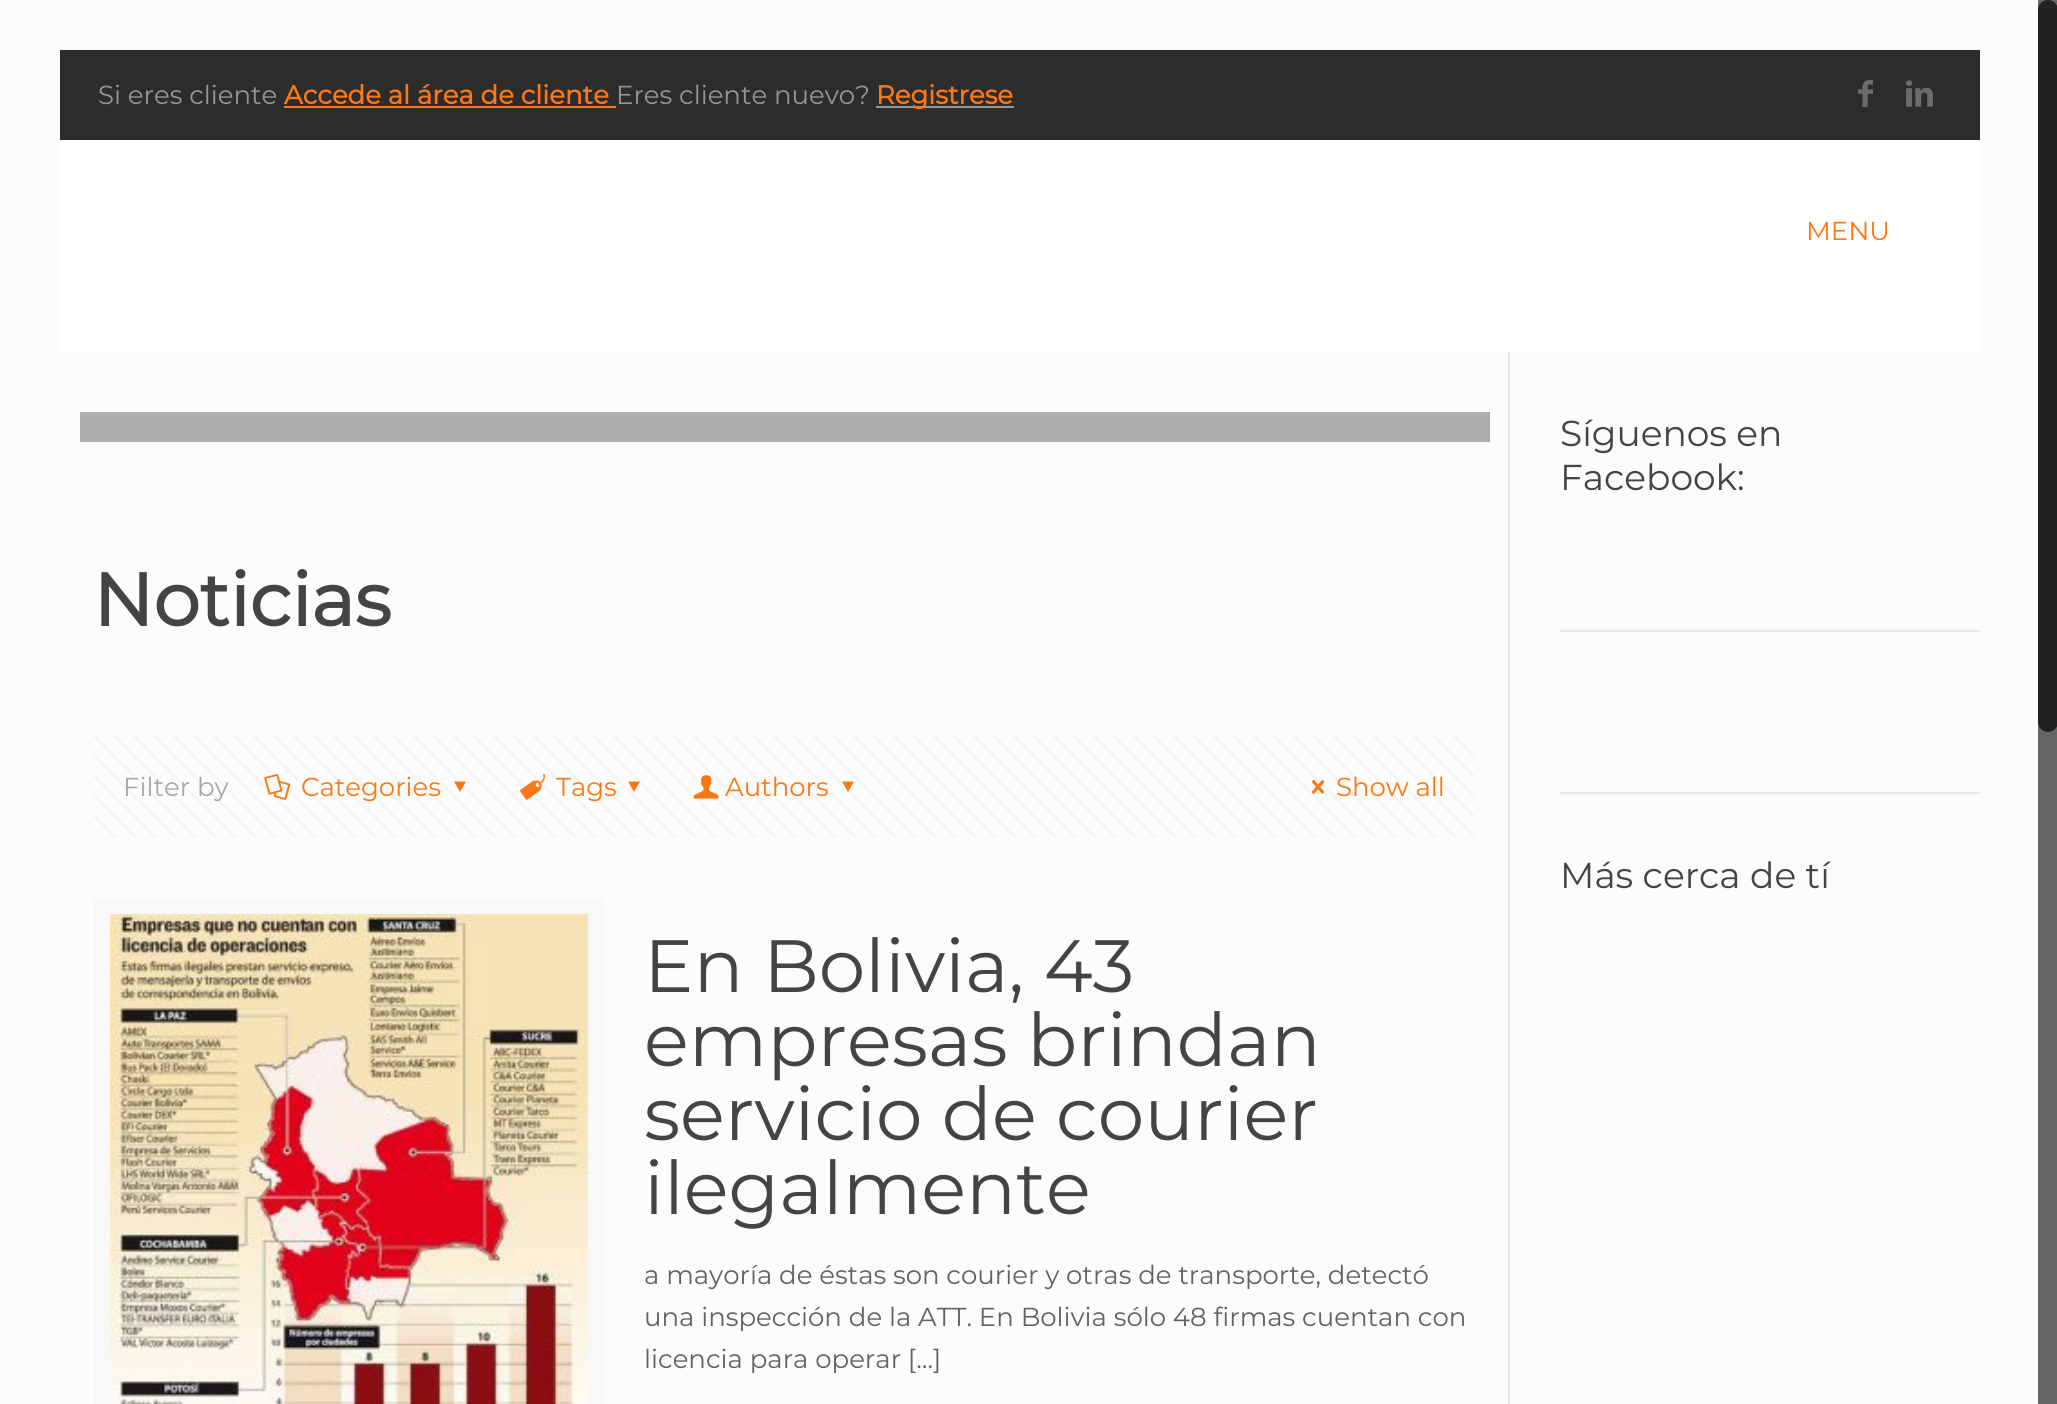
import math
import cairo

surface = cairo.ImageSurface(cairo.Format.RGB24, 2057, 1404)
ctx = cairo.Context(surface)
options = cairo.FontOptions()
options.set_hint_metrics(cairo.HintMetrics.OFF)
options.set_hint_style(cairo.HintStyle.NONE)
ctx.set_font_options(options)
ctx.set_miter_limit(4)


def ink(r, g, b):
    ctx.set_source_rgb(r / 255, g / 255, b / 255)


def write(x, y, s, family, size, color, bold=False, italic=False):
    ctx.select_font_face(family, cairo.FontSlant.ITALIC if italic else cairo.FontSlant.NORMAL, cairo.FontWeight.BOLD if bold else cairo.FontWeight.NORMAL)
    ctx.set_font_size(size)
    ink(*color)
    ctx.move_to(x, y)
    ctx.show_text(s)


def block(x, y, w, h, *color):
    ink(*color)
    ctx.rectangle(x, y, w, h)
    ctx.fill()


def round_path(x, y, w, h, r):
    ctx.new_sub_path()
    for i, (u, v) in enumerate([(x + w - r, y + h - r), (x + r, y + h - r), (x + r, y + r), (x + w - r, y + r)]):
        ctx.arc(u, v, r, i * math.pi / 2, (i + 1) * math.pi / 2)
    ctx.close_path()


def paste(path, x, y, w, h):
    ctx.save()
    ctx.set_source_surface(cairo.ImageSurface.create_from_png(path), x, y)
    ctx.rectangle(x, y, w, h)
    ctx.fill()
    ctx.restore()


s1 = dict(family="Montserrat Thin", size=26, color=(150, 150, 150))
s2 = dict(family="Montserrat", size=26, color=(255, 119, 19), bold=True)
s3 = dict(family="Montserrat Thin", size=26, color=(255, 119, 19))
s4 = dict(family="Montserrat", size=74, color=(68, 68, 68), bold=True)
s5 = dict(family="Montserrat Thin", size=26, color=(168, 168, 168))
s6 = dict(family="Montserrat Thin", size=74, color=(68, 68, 68))
s7 = dict(family="Montserrat Thin", size=26, color=(98, 98, 98))
s8 = dict(family="Montserrat Thin", size=36, color=(68, 68, 68))

ink(252, 252, 252)
ctx.paint()
block(60, 50, 1920, 90, 44, 44, 44)
write(98, 104, "Si eres cliente", **s1)
write(284, 104, "Accede al área de cliente", **s2)
block(284, 106, 332, 2, 255, 119, 19)
write(616, 104, "Eres cliente nuevo?", **s1)
block(876, 106, 138, 2, 150, 150, 150)
write(876, 104, "Registrese", **s2)
paste("pic1.png", 1858, 80, 15, 27)
paste("pic2.png", 1906, 80, 27, 27)
block(60, 140, 1920, 212, 255, 255, 255)
write(1806, 240, "MENU", **s3)
block(80, 412, 1410, 30, 173, 173, 173)
write(93, 626, "Noticias", **s4)
paste("pic3.png", 94, 736, 1380, 102)
write(123, 796, "Filter by", **s5)
paste("pic4.png", 264, 773, 27, 27)
write(301, 796, "Categories", **s3)
ctx.new_path()
ctx.move_to(466, 781.5)
ctx.line_to(460, 792)
ctx.line_to(454, 781.5)
ctx.close_path()
ctx.fill()
paste("pic5.png", 520, 773, 25, 27)
write(556, 796, "Tags", **s3)
ctx.new_path()
ctx.move_to(640, 781.5)
ctx.line_to(634, 792)
ctx.line_to(628, 781.5)
ctx.close_path()
ctx.fill()
paste("pic6.png", 694, 775, 25, 24)
write(725, 796, "Authors", **s3)
ctx.new_path()
ctx.move_to(854, 781.5)
ctx.line_to(848, 792)
ctx.line_to(842, 781.5)
ctx.close_path()
ctx.fill()
paste("pic7.png", 1312, 780, 13, 14)
write(1336, 796, "Show all", **s3)
ctx.rectangle(102, 906, 494, 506)
ink(248, 248, 248)
ctx.set_line_width(16)
ctx.stroke()
paste("pic8.png", 110, 914, 478, 490)
write(644, 992, "En Bolivia, 43", **s6)
write(644, 1066, "empresas brindan", **s6)
write(644, 1140, "servicio de courier", **s6)
write(644, 1214, "ilegalmente", **s6)
write(644, 1284, "a mayoría de éstas son courier y otras de transporte, detectó", **s7)
write(644, 1326, "una inspección de la ATT. En Bolivia sólo 48 firmas cuentan con", **s7)
write(644, 1368, "licencia para operar […]", **s7)
block(1508, 352, 2, 1052, 232, 232, 232)
write(1560, 446, "Síguenos en", **s8)
write(1560, 490, "Facebook:", **s8)
block(1560, 630, 420, 2, 232, 232, 232)
block(1560, 792, 420, 2, 232, 232, 232)
write(1560, 888, "Más cerca de tí", **s8)
block(2038, 0, 19, 1404, 102, 102, 102)
ink(34, 34, 34)
round_path(2038, 0, 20, 732, 10)
ctx.fill()
surface.write_to_png("screenshot.png")
